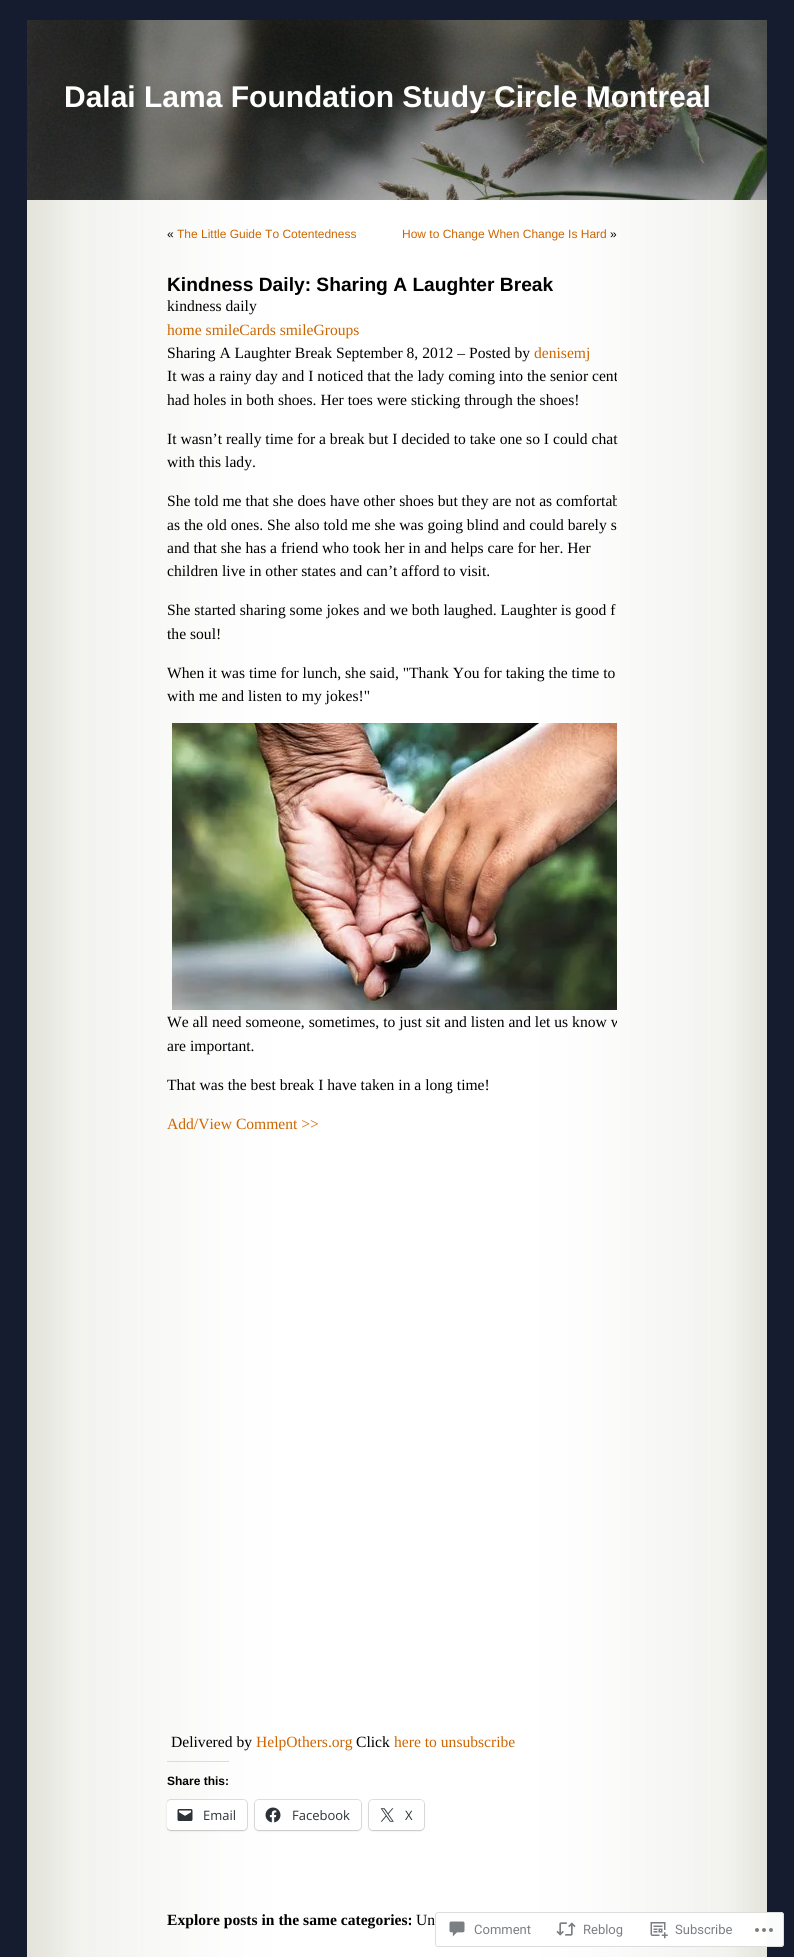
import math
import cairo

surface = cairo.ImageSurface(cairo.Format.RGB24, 794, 1957)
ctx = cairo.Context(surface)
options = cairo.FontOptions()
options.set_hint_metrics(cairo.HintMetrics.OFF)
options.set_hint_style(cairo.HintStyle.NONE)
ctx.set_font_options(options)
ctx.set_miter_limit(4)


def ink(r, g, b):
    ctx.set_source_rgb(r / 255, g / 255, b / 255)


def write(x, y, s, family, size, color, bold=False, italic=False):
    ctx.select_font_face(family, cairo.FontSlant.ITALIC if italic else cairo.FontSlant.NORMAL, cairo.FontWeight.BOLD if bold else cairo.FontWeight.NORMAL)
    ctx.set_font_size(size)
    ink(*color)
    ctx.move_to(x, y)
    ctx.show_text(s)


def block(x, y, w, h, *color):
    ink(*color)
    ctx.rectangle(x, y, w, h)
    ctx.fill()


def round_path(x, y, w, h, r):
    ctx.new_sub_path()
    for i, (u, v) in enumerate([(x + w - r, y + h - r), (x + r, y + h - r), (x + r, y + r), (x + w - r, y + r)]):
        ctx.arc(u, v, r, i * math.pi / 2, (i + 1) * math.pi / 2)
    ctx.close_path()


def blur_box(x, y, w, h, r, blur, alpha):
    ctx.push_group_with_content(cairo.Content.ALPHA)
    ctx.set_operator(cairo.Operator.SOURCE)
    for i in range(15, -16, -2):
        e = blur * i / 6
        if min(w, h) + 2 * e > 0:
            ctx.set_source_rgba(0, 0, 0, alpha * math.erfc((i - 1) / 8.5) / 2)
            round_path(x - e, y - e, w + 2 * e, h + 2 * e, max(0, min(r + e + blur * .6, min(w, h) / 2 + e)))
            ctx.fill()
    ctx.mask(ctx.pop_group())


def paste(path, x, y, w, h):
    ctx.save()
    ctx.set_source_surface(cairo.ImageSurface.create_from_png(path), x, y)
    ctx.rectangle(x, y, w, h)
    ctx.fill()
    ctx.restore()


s1 = dict(family="Liberation Sans", size=30, color=(255, 255, 255), bold=True)
s2 = dict(family="Liberation Sans", size=12, color=(0, 0, 0))
s3 = dict(family="Liberation Sans", size=12, color=(204, 102, 0))
s4 = dict(family="Liberation Sans", size=19.2, color=(0, 0, 0), bold=True)
s5 = dict(family="Liberation Serif", size=15.6, color=(0, 0, 0))
s6 = dict(family="Liberation Serif", size=15.6, color=(204, 102, 0))
s7 = dict(family="Liberation Sans", size=12, color=(0, 0, 0), bold=True)
s8 = dict(family="Open Sans", size=13, color=(44, 51, 56))
s9 = dict(family="Liberation Serif", size=15.6, color=(0, 0, 0), bold=True)
s10 = dict(family="Roboto", size=13, color=(123, 127, 132))

ink(21, 28, 47)
ctx.paint()
paste("pic1.png", 27, 200, 740, 1757)
paste("pic2.png", 27, 20, 740, 180)
write(64, 107, "Dalai Lama Foundation Study Circle Montreal", **s1)
write(167, 238, "«", **s2)
write(177, 238, "The Little Guide To Cotentedness", **s3)
write(402, 238, "How to Change When Change Is Hard", **s3)
write(610, 238, "»", **s2)
write(167, 291, "Kindness Daily: Sharing A Laughter Break", **s4)
write(167, 311, "kindness daily", **s5)
write(167, 335, "home smileCards smileGroups", **s6)
write(167, 358, "Sharing A Laughter Break September 8, 2012 – Posted by", **s5)
write(534, 358, "denisemj", **s6)
ctx.save()
ctx.rectangle(167, 205, 450, 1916)
ctx.clip()
write(167, 381, "It was a rainy day and I noticed that the lady coming into the senior cent", **s5)
ctx.restore()
write(167, 405, "had holes in both shoes. Her toes were sticking through the shoes!", **s5)
write(167, 444, "It wasn’t really time for a break but I decided to take one so I could chat", **s5)
write(167, 467, "with this lady.", **s5)
ctx.save()
ctx.rectangle(167, 205, 450, 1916)
ctx.clip()
write(167, 506, "She told me that she does have other shoes but they are not as comfortab", **s5)
ctx.restore()
write(167, 530, "as the old ones. She also told me she was going blind and could barely s", **s5)
write(167, 553, "and that she has a friend who took her in and helps care for her. Her", **s5)
write(167, 576, "children live in other states and can’t afford to visit.", **s5)
write(167, 615, "She started sharing some jokes and we both laughed. Laughter is good f", **s5)
write(167, 639, "the soul!", **s5)
write(167, 678, "When it was time for lunch, she said, \"Thank You for taking the time to", **s5)
write(167, 701, "with me and listen to my jokes!\"", **s5)
paste("pic3.png", 172, 723, 445, 287)
ctx.save()
ctx.rectangle(167, 205, 450, 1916)
ctx.clip()
write(167, 1027, "We all need someone, sometimes, to just sit and listen and let us know w", **s5)
ctx.restore()
write(167, 1051, "are important.", **s5)
write(167, 1090, "That was the best break I have taken in a long time!", **s5)
write(167, 1129, "Add/View Comment >>", **s6)
write(171, 1747, "Delivered by", **s5)
write(256, 1747, "HelpOthers.org", **s6)
write(356, 1747, "Click", **s5)
write(394, 1747, "here to unsubscribe", **s6)
block(167, 1761, 62, 1, 220, 220, 222)
write(167, 1785, "Share this:", **s7)
ctx.save()
ctx.rectangle(167, 205, 450, 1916)
ctx.clip()
round_path(166.5, 1799.5, 81, 31, 4.5)
ctx.set_source_rgba(0, 0, 0, 0.12)
ctx.set_line_width(1)
ctx.stroke()
ctx.restore()
ink(0, 0, 0)
blur_box(167, 1801, 80, 30, 4, 1, 0.12)
ink(255, 255, 255)
round_path(167, 1800, 80, 30, 4)
ctx.fill()
paste("pic4.png", 177, 1809, 16, 12)
write(203, 1820, "Email", **s8)
round_path(254.5, 1799.5, 107, 31, 4.5)
ink(224, 224, 224)
ctx.set_line_width(1)
ctx.stroke()
ink(0, 0, 0)
blur_box(255, 1801, 106, 30, 4, 1, 0.12)
ink(255, 255, 255)
round_path(255, 1800, 106, 30, 4)
ctx.fill()
paste("pic5.png", 265, 1807, 16, 16)
write(292, 1820, "Facebook", **s8)
round_path(368.5, 1799.5, 56, 31, 4.5)
ink(224, 224, 224)
ctx.stroke()
ink(0, 0, 0)
blur_box(369, 1801, 55, 30, 4, 1, 0.12)
ink(255, 255, 255)
round_path(369, 1800, 55, 30, 4)
ctx.fill()
paste("pic6.png", 380, 1808, 14, 14)
write(405, 1820, "X", **s8)
write(167, 1925, "Explore posts in the same categories:", **s9)
write(416, 1925, "Un", **s5)
ctx.set_source_rgba(1, 1, 1, 0.98)
round_path(435, 1912, 349, 35, 3)
ctx.fill()
round_path(435.5, 1912.5, 348, 34, 2.5)
ctx.set_source_rgba(0.863, 0.863, 0.871, 0.98)
ctx.stroke()
paste("pic7.png", 449, 1921, 16, 16)
write(474, 1934, "Comment", **s10)
paste("pic8.png", 556, 1922, 20, 14)
write(583, 1934, "Reblog", **s10)
paste("pic9.png", 650, 1922, 18, 17)
write(675, 1934, "Subscribe", **s10)
paste("pic10.png", 755, 1928, 18, 4)
surface.write_to_png("screenshot.png")
